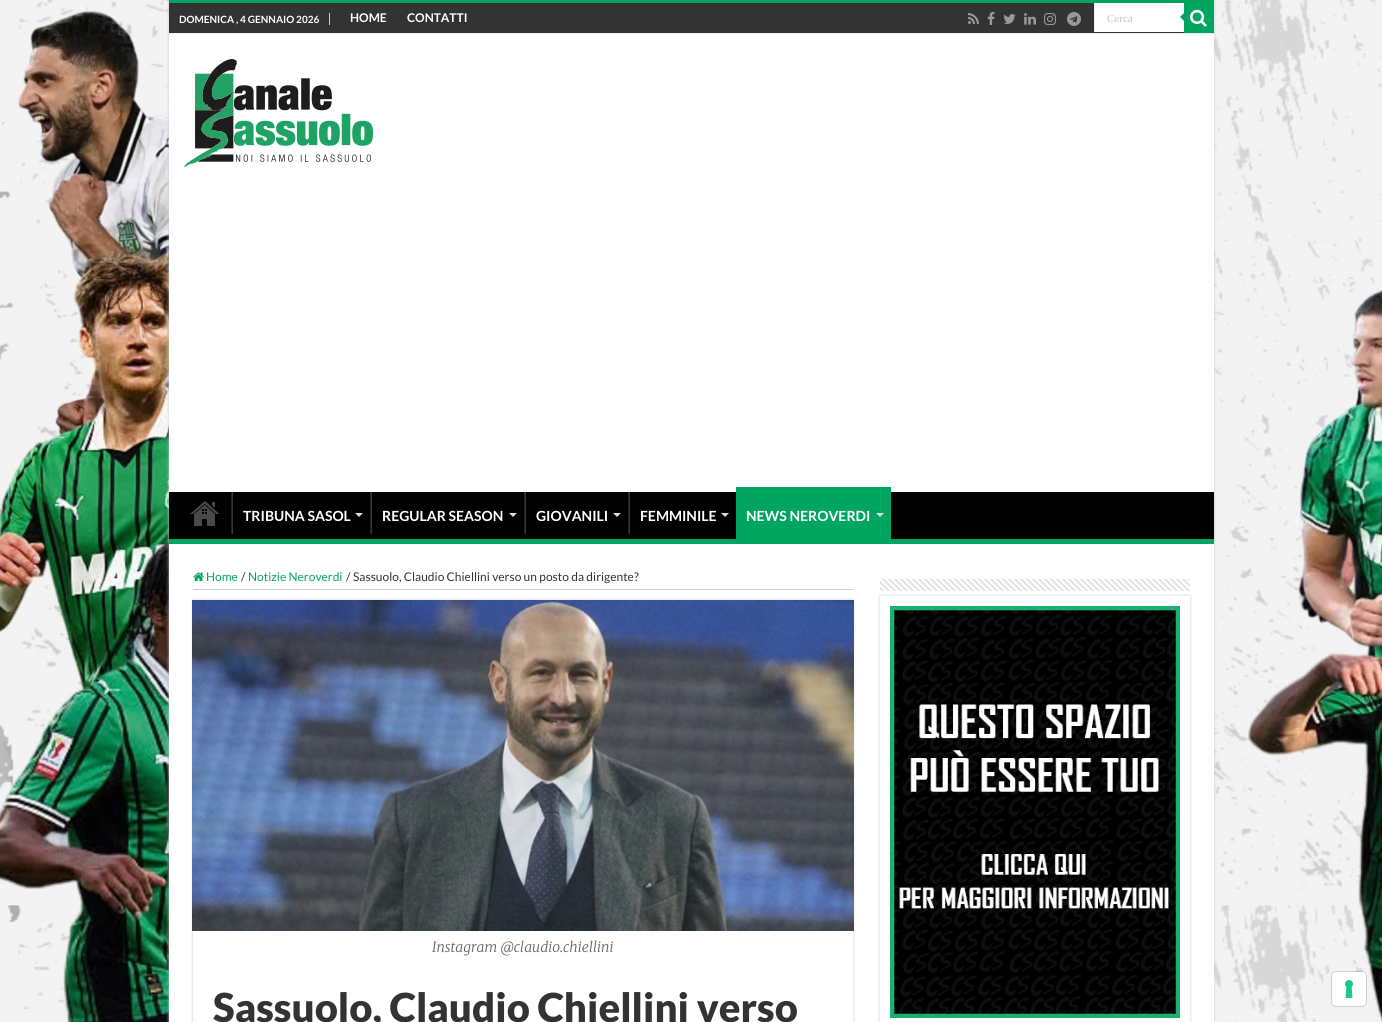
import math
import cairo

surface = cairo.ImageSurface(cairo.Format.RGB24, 1382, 1022)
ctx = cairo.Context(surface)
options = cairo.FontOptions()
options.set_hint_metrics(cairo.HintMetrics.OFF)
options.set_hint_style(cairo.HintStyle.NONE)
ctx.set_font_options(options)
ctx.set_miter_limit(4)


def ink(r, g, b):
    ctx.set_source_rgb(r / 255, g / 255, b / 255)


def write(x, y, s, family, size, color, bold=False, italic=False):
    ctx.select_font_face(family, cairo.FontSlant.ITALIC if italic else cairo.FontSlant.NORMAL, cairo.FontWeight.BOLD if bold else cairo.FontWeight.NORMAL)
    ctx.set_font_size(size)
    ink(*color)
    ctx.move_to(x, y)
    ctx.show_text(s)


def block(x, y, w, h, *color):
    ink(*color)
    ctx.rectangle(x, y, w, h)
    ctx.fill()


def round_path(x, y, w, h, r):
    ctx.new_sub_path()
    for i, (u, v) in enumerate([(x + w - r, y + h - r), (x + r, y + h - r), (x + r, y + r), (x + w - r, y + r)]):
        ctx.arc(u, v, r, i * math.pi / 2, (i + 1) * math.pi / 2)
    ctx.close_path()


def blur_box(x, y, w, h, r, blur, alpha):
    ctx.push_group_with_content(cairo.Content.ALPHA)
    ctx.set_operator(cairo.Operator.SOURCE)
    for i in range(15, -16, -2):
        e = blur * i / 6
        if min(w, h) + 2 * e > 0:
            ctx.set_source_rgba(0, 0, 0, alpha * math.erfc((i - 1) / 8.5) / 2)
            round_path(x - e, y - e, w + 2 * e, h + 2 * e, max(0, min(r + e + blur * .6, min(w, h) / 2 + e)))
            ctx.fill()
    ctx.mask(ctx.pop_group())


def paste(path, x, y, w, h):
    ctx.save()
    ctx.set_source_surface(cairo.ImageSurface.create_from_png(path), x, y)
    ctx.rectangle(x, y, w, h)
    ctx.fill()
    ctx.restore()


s1 = dict(family="Lato", size=10, color=(255, 255, 255), bold=True)
s2 = dict(family="Lato", size=12, color=(255, 255, 255), bold=True)
s3 = dict(family="Liberation Serif", size=11, color=(197, 197, 197))
s4 = dict(family="Lato", size=14, color=(255, 255, 255), bold=True)
s5 = dict(family="Lato", size=12, color=(0, 165, 98))
s6 = dict(family="Lato", size=12, color=(51, 51, 51))
s7 = dict(family="Merriweather Light", size=14, color=(102, 102, 102), italic=True)
s8 = dict(family="Lato Black", size=40, color=(51, 51, 51))

ink(255, 255, 255)
ctx.paint()
paste("pic1.png", 0, 0, 1382, 1022)
ink(202, 202, 202)
blur_box(169, 0, 1045, 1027, 0, 1.5, 1)
block(169, 34, 1045, 988, 255, 255, 255)
block(169, 0, 1045, 3, 0, 165, 98)
block(169, 3, 1015, 30, 51, 51, 51)
block(169, 33, 1045, 1, 236, 236, 236)
block(329, 13, 1, 12, 204, 204, 204)
write(179, 23, "DOMENICA , 4 GENNAIO 2026", **s1)
write(350, 22, "HOME", **s2)
write(407, 22, "CONTATTI", **s2)
paste("pic2.png", 968, 13, 11, 11)
paste("pic3.png", 987, 12, 8, 13)
paste("pic4.png", 1003, 14, 13, 10)
paste("pic5.png", 1024, 13, 12, 12)
paste("pic6.png", 1044, 13, 12, 12)
paste("pic7.png", 1067, 12, 14, 14)
block(1095, 3, 89, 29, 255, 255, 255)
block(1094, 3, 1, 29, 236, 236, 236)
write(1107, 22, "Cerca", **s3)
block(1184, 3, 30, 30, 0, 165, 98)
paste("pic8.png", 1190, 9, 17, 18)
ctx.new_path()
ctx.move_to(1184, 13)
ctx.line_to(1184, 21)
ctx.line_to(1180, 17)
ctx.close_path()
ctx.fill()
paste("pic9.png", 184, 59, 189, 108)
block(169, 492, 1045, 47, 0, 0, 0)
block(169, 539, 1045, 5, 0, 165, 98)
paste("pic10.png", 190, 501, 30, 25)
block(231, 492, 1, 42, 34, 34, 34)
block(232, 492, 1, 42, 56, 56, 56)
write(243, 521, "TRIBUNA SASOL", **s4)
ink(221, 221, 221)
ctx.new_path()
ctx.move_to(355, 513)
ctx.line_to(363, 513)
ctx.line_to(359, 517)
ctx.close_path()
ctx.fill()
block(370, 492, 1, 42, 34, 34, 34)
block(371, 492, 1, 42, 56, 56, 56)
write(382, 521, "REGULAR SEASON", **s4)
ink(221, 221, 221)
ctx.new_path()
ctx.move_to(509, 513)
ctx.line_to(517, 513)
ctx.line_to(513, 517)
ctx.close_path()
ctx.fill()
block(524, 492, 1, 42, 34, 34, 34)
block(525, 492, 1, 42, 56, 56, 56)
write(536, 521, "GIOVANILI", **s4)
ink(221, 221, 221)
ctx.new_path()
ctx.move_to(613, 513)
ctx.line_to(621, 513)
ctx.line_to(617, 517)
ctx.close_path()
ctx.fill()
block(628, 492, 1, 42, 34, 34, 34)
block(629, 492, 1, 42, 56, 56, 56)
write(640, 521, "FEMMINILE", **s4)
ink(221, 221, 221)
ctx.new_path()
ctx.move_to(721, 513)
ctx.line_to(729, 513)
ctx.line_to(725, 517)
ctx.close_path()
ctx.fill()
block(736, 487, 155, 52, 0, 165, 98)
write(746, 521, "NEWS NEROVERDI", **s4)
ink(221, 221, 221)
ctx.new_path()
ctx.move_to(876, 513)
ctx.line_to(884, 513)
ctx.line_to(880, 517)
ctx.close_path()
ctx.fill()
block(193, 589, 660, 1, 204, 204, 204)
paste("pic11.png", 193, 572, 11, 9)
write(206, 581, "Home", **s5)
write(241, 581, "/", **s6)
write(248, 581, "Notizie Neroverdi", **s5)
write(346, 581, "/", **s6)
write(353, 581, "Sassuolo, Claudio Chiellini verso un posto da dirigente?", **s6)
ctx.save()
ctx.set_fill_rule(cairo.FillRule.EVEN_ODD)
ctx.new_path()
ctx.move_to(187, 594)
ctx.line_to(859, 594)
ctx.line_to(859, 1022)
ctx.line_to(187, 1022)
ctx.close_path()
ctx.move_to(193, 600)
ctx.line_to(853, 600)
ctx.line_to(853, 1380)
ctx.line_to(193, 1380)
ctx.close_path()
ctx.clip()
ink(202, 202, 202)
blur_box(193, 600, 660, 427, 0, 1.5, 1)
ctx.restore()
paste("pic12.png", 192, 600, 662, 331)
write(432, 952, "Instagram @claudio.chiellini", **s7)
write(213, 1022, "Sassuolo, Claudio Chiellini verso", **s8)
ctx.save()
ctx.set_fill_rule(cairo.FillRule.EVEN_ODD)
ctx.new_path()
ctx.move_to(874, 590)
ctx.line_to(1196, 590)
ctx.line_to(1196, 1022)
ctx.line_to(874, 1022)
ctx.close_path()
ctx.move_to(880, 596)
ctx.line_to(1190, 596)
ctx.line_to(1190, 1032)
ctx.line_to(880, 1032)
ctx.close_path()
ctx.clip()
ink(202, 202, 202)
blur_box(880, 596, 310, 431, 0, 1.5, 1)
ctx.restore()
paste("pic13.png", 880, 579, 310, 12)
paste("pic14.png", 890, 606, 290, 412)
round_path(1331.5, 971.5, 35, 35, 4.5)
ctx.set_source_rgba(0, 0, 0, 0.15)
ctx.set_line_width(1)
ctx.stroke()
ink(255, 255, 255)
round_path(1332, 972, 34, 34, 4)
ctx.fill()
paste("pic15.png", 1345, 980, 8, 18)
surface.write_to_png("screenshot.png")
